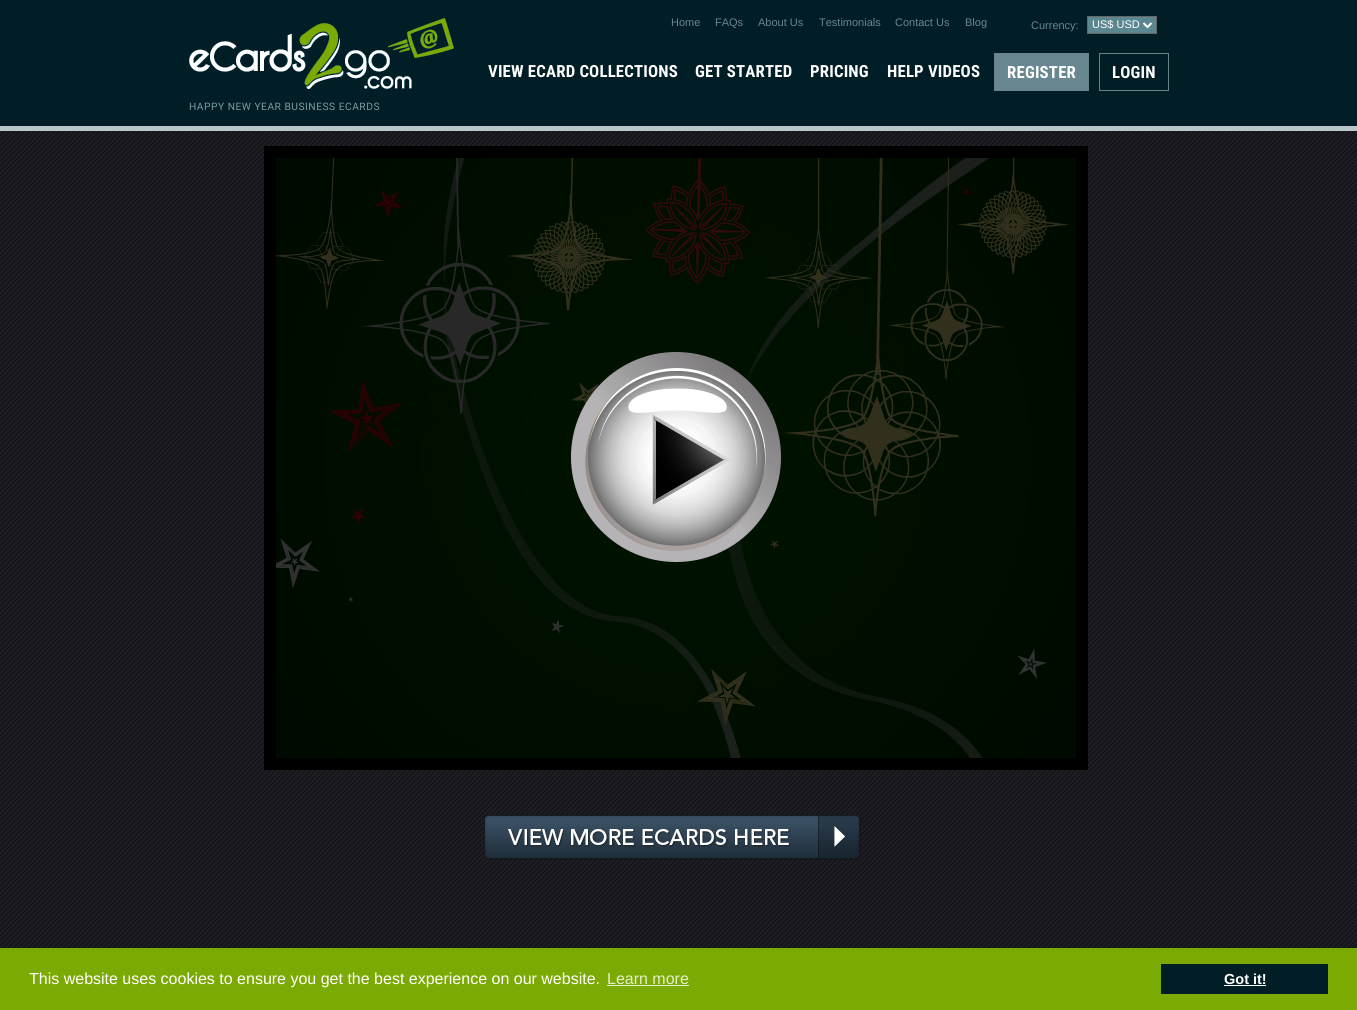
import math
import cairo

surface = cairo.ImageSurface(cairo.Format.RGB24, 1357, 1010)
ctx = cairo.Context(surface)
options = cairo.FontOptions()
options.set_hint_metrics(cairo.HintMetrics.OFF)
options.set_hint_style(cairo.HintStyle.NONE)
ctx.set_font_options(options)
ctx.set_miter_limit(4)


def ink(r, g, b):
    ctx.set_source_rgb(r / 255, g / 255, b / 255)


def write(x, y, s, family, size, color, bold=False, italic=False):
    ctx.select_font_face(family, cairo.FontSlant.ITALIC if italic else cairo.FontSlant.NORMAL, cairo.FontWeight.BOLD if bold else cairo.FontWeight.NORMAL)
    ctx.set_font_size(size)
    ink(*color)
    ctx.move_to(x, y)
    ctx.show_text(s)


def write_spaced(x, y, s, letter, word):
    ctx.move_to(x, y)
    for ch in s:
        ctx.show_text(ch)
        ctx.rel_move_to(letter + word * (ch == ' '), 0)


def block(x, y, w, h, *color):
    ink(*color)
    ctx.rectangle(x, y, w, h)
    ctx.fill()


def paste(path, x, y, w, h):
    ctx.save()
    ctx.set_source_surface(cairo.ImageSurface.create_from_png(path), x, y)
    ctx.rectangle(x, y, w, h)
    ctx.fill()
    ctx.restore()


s1 = dict(family="Liberation Sans", size=11, color=(104, 135, 144))
s2 = dict(family="Liberation Sans", size=11, color=(255, 255, 255))
s3 = dict(family="Liberation Sans", size=16, color=(255, 255, 255))
s4 = dict(family="Liberation Sans", size=16, color=(229, 238, 205))
s5 = dict(family="Liberation Sans", size=14.5, color=(255, 255, 255), bold=True)

ink(30, 29, 32)
ctx.paint()
paste("pic1.png", 0, 131, 1357, 817)
block(0, 0, 1357, 126, 1, 29, 37)
block(0, 126, 1357, 5, 185, 199, 203)
write(671, 26, "Home", **s1)
write(715, 26, "FAQs", **s1)
write(758, 26, "About Us", **s1)
write(819, 26, "Testimonials", **s1)
write(895, 26, "Contact Us", **s1)
write(965, 26, "Blog", **s1)
write(1031, 29, "Currency:", **s1)
ink(90, 135, 144)
ctx.rectangle(1087.5, 16.5, 69, 17)
ctx.fill_preserve()
ink(102, 102, 102)
ctx.set_line_width(1)
ctx.stroke()
ctx.new_path()
ctx.move_to(1143.5, 23)
ctx.line_to(1147.5, 27)
ctx.line_to(1151.5, 23)
ink(255, 255, 255)
ctx.set_line_width(2)
ctx.stroke()
write(1092, 28, "US$ USD", **s2)
ctx.select_font_face("Roboto Condensed", cairo.FontSlant.NORMAL, cairo.FontWeight.BOLD)
ctx.set_font_size(16.75)
write_spaced(488, 77, "VIEW ECARD COLLECTIONS", 0.2, 0)
write_spaced(695, 77, "GET STARTED", 0.2, 0)
write_spaced(810, 77, "PRICING", 0.2, 0)
write_spaced(887, 77, "HELP VIDEOS", 0.2, 0)
ink(104, 135, 144)
ctx.rectangle(994.5, 53.5, 94, 37)
ctx.fill_preserve()
ink(108, 130, 138)
ctx.set_line_width(1)
ctx.stroke()
ink(255, 255, 255)
write_spaced(1007, 78, "REGISTER", 0.2, 0)
ctx.rectangle(1099.5, 53.5, 69, 37)
ink(108, 130, 138)
ctx.stroke()
ink(255, 255, 255)
write_spaced(1112, 78, "LOGIN", 0.2, 0)
paste("pic2.png", 189, 18, 265, 71)
ctx.select_font_face("Roboto")
ctx.set_font_size(10.25)
ink(128, 153, 161)
write_spaced(189, 110, "HAPPY NEW YEAR BUSINESS ECARDS", 0.5, 0)
ctx.rectangle(270, 152, 812, 612)
ink(0, 0, 0)
ctx.set_line_width(12)
ctx.stroke()
paste("pic3.png", 276, 158, 800, 600)
paste("pic4.png", 484, 815, 377, 45)
block(0, 948, 1357, 62, 124, 170, 4)
write(29, 984, "This website uses cookies to ensure you get the best experience on our website.", **s3)
write(607, 984, "Learn more", **s4)
block(607, 985, 82, 1, 229, 238, 205)
block(1161, 964, 167, 30, 1, 29, 37)
write(1224, 984, "Got it!", **s5)
block(1224, 985, 42, 1, 255, 255, 255)
surface.write_to_png("screenshot.png")
